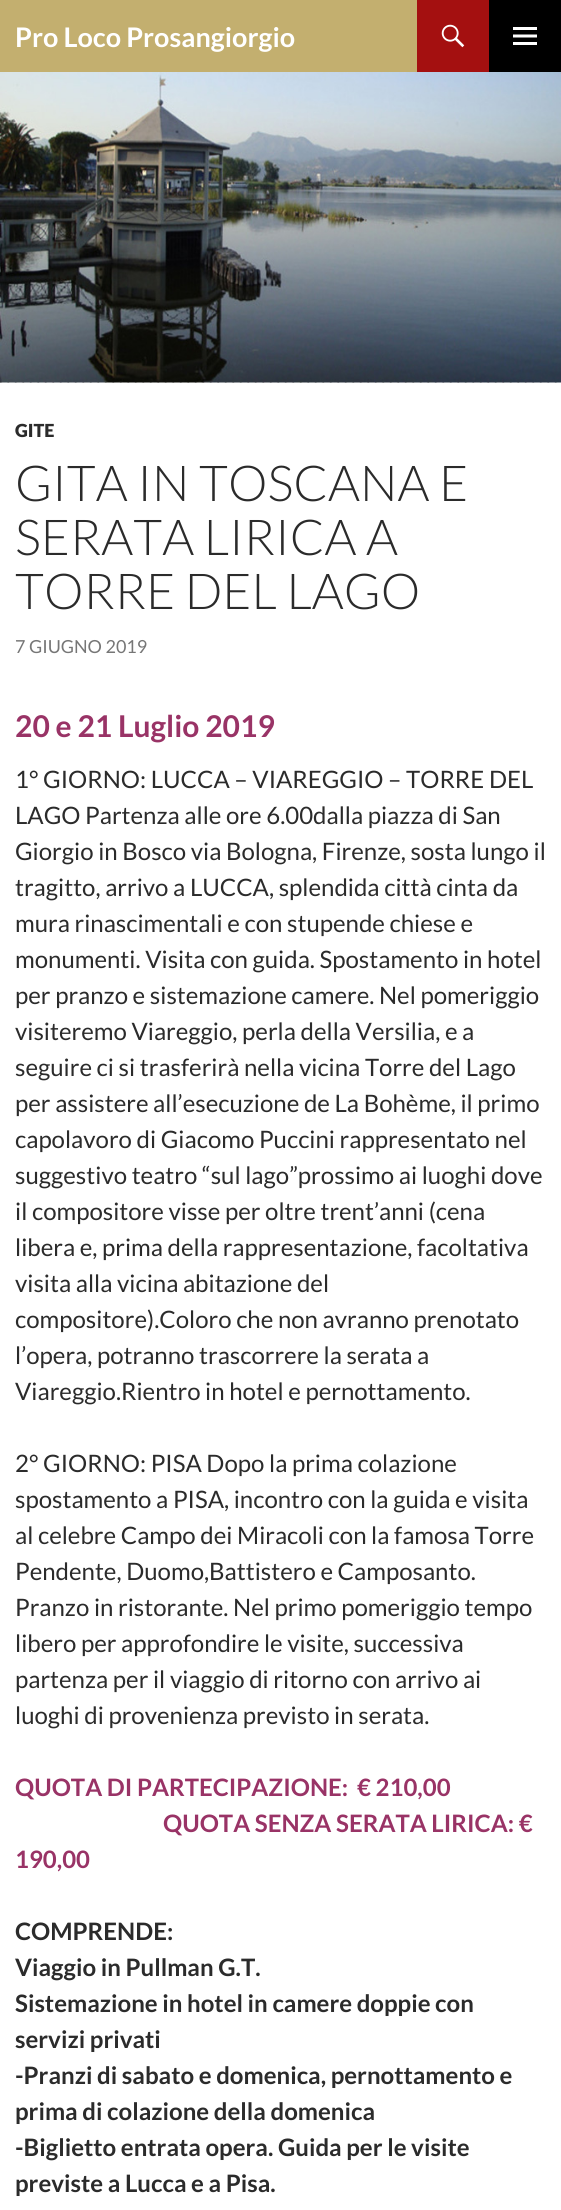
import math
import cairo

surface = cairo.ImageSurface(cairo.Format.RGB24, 561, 2210)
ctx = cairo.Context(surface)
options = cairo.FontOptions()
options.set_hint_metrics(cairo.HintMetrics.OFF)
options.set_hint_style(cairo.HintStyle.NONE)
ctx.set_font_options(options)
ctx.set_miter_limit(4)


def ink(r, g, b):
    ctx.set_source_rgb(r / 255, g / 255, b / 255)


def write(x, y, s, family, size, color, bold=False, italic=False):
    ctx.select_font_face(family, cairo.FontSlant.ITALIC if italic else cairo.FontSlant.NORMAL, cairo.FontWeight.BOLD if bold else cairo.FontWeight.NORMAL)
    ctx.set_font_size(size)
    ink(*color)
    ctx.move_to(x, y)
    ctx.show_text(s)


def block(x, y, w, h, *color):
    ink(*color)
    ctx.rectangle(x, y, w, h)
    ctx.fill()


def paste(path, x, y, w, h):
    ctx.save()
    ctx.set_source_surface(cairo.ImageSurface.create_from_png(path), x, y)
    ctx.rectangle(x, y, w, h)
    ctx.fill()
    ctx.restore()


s1 = dict(family="Lato", size=27, color=(255, 255, 255), bold=True)
s2 = dict(family="Lato Black", size=18, color=(43, 43, 43))
s3 = dict(family="Lato Light", size=49.5, color=(43, 43, 43))
s4 = dict(family="Lato", size=18, color=(118, 118, 118))
s5 = dict(family="Lato", size=30, color=(153, 51, 102), bold=True)
s6 = dict(family="Lato", size=24, color=(43, 43, 43))
s7 = dict(family="Lato", size=24, color=(153, 51, 102), bold=True)
s8 = dict(family="Lato", size=24, color=(43, 43, 43), bold=True)

ink(255, 255, 255)
ctx.paint()
block(0, 0, 417, 72, 195, 175, 111)
write(15, 47, "Pro Loco Prosangiorgio", **s1)
block(417, 0, 72, 72, 164, 16, 16)
paste("pic1.png", 441, 24, 24, 24)
block(489, 0, 72, 72, 0, 0, 0)
paste("pic2.png", 513, 27, 24, 18)
block(0, 382, 557, 1, 178, 178, 178)
paste("pic3.png", 0, 382, 561, 1)
paste("pic4.png", 0, 72, 561, 311)
write(15, 437, "GITE", **s2)
write(15, 501, "GITA IN TOSCANA E", **s3)
write(15, 555, "SERATA LIRICA A", **s3)
write(15, 609, "TORRE DEL LAGO", **s3)
write(15, 653, "7 GIUGNO 2019", **s4)
write(15, 737, "20 e 21 Luglio 2019", **s5)
write(15, 788, "1° GIORNO: LUCCA – VIAREGGIO – TORRE DEL", **s6)
write(15, 824, "LAGO Partenza alle ore 6.00dalla piazza di San", **s6)
write(15, 860, "Giorgio in Bosco via Bologna, Firenze, sosta lungo il", **s6)
write(15, 896, "tragitto, arrivo a LUCCA, splendida città cinta da", **s6)
write(15, 932, "mura rinascimentali e con stupende chiese e", **s6)
write(15, 968, "monumenti. Visita con guida. Spostamento in hotel", **s6)
write(15, 1004, "per pranzo e sistemazione camere. Nel pomeriggio", **s6)
write(15, 1040, "visiteremo Viareggio, perla della Versilia, e a", **s6)
write(15, 1076, "seguire ci si trasferirà nella vicina Torre del Lago", **s6)
write(15, 1112, "per assistere all’esecuzione de La Bohème, il primo", **s6)
write(15, 1148, "capolavoro di Giacomo Puccini rappresentato nel", **s6)
write(15, 1184, "suggestivo teatro “sul lago”prossimo ai luoghi dove", **s6)
write(15, 1220, "il compositore visse per oltre trent’anni (cena", **s6)
write(15, 1256, "libera e, prima della rappresentazione, facoltativa", **s6)
write(15, 1292, "visita alla vicina abitazione del", **s6)
write(15, 1328, "compositore).Coloro che non avranno prenotato", **s6)
write(15, 1364, "l’opera, potranno trascorrere la serata a", **s6)
write(15, 1400, "Viareggio.Rientro in hotel e pernottamento.", **s6)
write(15, 1472, "2° GIORNO: PISA Dopo la prima colazione", **s6)
write(15, 1508, "spostamento a PISA, incontro con la guida e visita", **s6)
write(15, 1544, "al celebre Campo dei Miracoli con la famosa Torre", **s6)
write(15, 1580, "Pendente, Duomo,Battistero e Camposanto.", **s6)
write(15, 1616, "Pranzo in ristorante. Nel primo pomeriggio tempo", **s6)
write(15, 1652, "libero per approfondire le visite, successiva", **s6)
write(15, 1688, "partenza per il viaggio di ritorno con arrivo ai", **s6)
write(15, 1724, "luoghi di provenienza previsto in serata.", **s6)
write(15, 1796, "QUOTA DI PARTECIPAZIONE:", **s7)
write(357, 1796, "€ 210,00", **s7)
write(163, 1832, "QUOTA SENZA SERATA LIRICA: €", **s7)
write(15, 1868, "190,00", **s7)
write(15, 1940, "COMPRENDE:", **s8)
write(15, 1976, "Viaggio in Pullman G.T.", **s8)
write(15, 2012, "Sistemazione in hotel in camere doppie con", **s8)
write(15, 2048, "servizi privati", **s8)
write(15, 2084, "-Pranzi di sabato e domenica, pernottamento e", **s8)
write(15, 2120, "prima di colazione della domenica", **s8)
write(15, 2156, "-Biglietto entrata opera. Guida per le visite", **s8)
write(15, 2192, "previste a Lucca e a Pisa.", **s8)
surface.write_to_png("screenshot.png")
